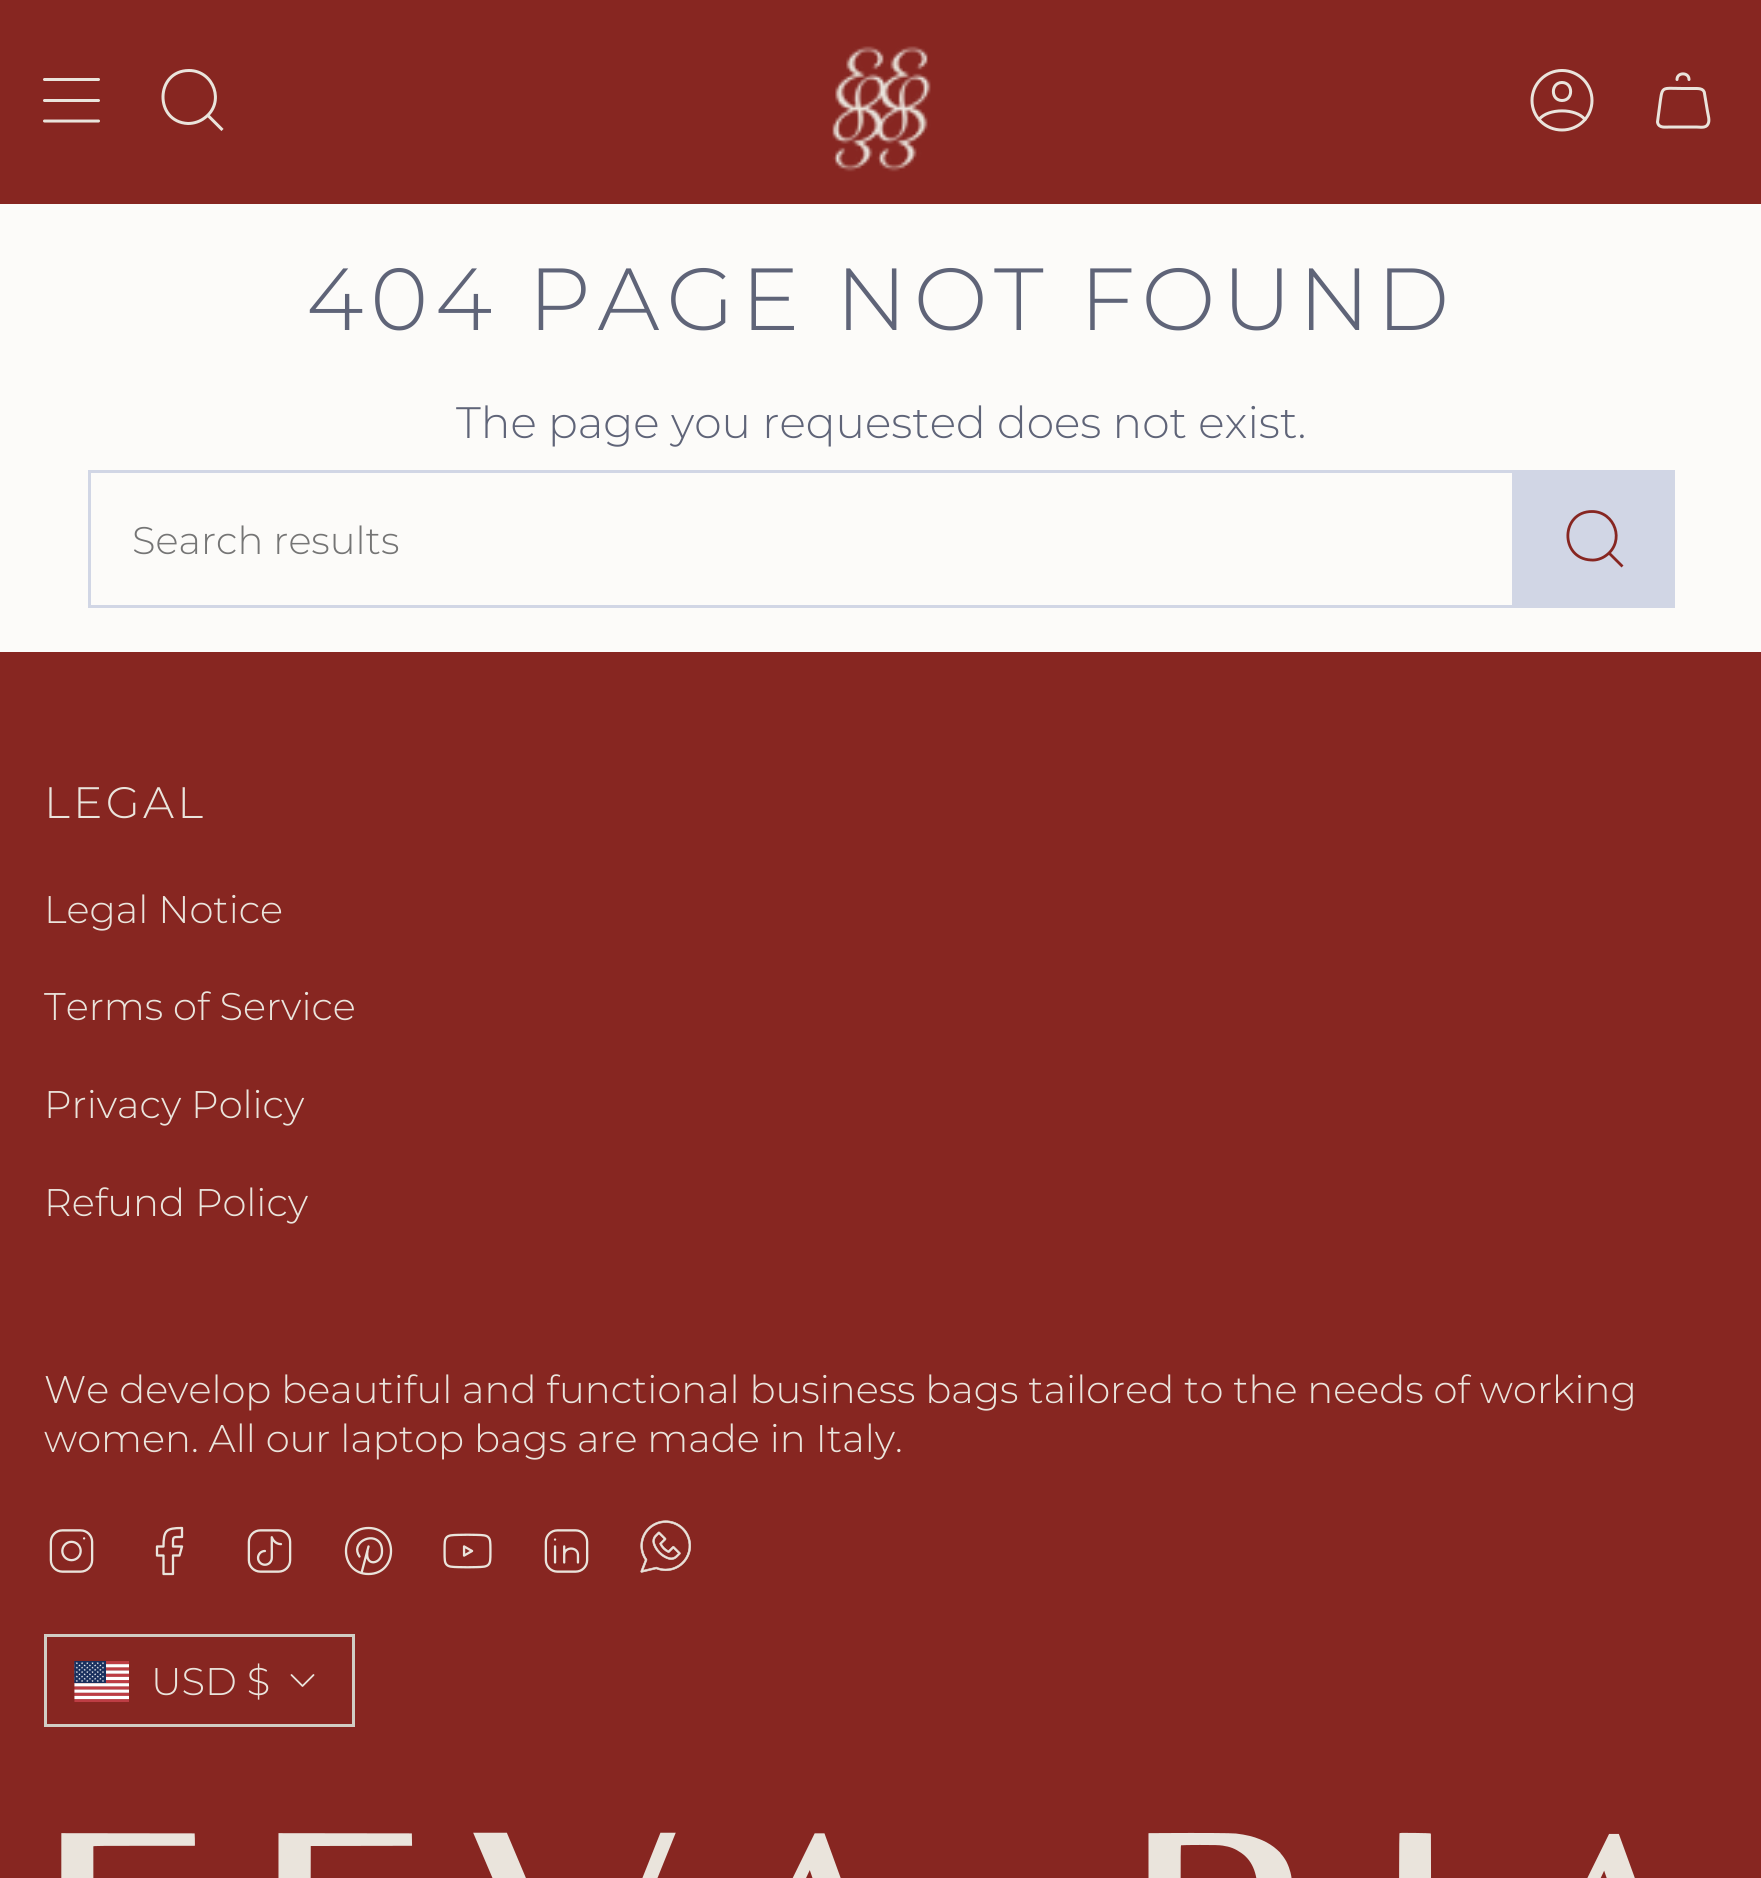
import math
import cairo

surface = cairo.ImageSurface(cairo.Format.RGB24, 1761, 1878)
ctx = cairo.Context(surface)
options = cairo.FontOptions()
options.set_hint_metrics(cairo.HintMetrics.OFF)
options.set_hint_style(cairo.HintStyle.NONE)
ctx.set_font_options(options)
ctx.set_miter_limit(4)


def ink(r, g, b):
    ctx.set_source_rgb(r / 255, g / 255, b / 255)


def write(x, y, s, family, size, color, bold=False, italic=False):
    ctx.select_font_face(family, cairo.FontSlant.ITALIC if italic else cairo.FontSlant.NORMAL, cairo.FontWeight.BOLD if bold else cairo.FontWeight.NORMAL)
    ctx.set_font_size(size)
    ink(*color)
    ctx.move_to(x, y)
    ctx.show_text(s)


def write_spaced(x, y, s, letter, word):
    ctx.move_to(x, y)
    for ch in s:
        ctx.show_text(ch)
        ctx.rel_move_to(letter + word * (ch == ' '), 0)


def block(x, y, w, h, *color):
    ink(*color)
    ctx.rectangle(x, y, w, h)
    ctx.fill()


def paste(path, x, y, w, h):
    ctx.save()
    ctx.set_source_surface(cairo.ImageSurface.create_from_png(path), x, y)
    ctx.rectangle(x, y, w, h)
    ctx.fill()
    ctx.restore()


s1 = dict(family="Montserrat Light", size=44, color=(95, 100, 120))
s2 = dict(family="Montserrat Light", size=38.5, color=(117, 117, 117))
s3 = dict(family="Montserrat Light", size=38.5, color=(234, 228, 220))

ink(252, 251, 249)
ctx.paint()
block(0, 0, 1761, 204, 135, 38, 33)
ctx.new_path()
ctx.move_to(44.5, 79.5)
ctx.line_to(98.5, 79.5)
ctx.move_to(44.5, 100.5)
ctx.line_to(98.5, 100.5)
ctx.move_to(44.5, 121)
ctx.line_to(98.5, 121)
ink(234, 228, 220)
ctx.set_line_width(3)
ctx.set_line_cap(cairo.LineCap.ROUND)
ctx.set_line_join(cairo.LineJoin.ROUND)
ctx.stroke()
ctx.new_path()
ctx.move_to(189, 70.5)
ctx.curve_to(214, 70.5, 225.5, 103, 204.5, 118)
ctx.curve_to(200, 121.5, 194, 123.5, 188, 123.5)
ctx.curve_to(154, 122, 155, 70.5, 189, 70.5)
ctx.close_path()
ctx.move_to(208, 115.5)
ctx.line_to(222.5, 130)
ctx.set_line_cap(cairo.LineCap.BUTT)
ctx.set_line_join(cairo.LineJoin.MITER)
ctx.stroke()
paste("pic1.png", 832, 46, 99, 126)
ctx.new_path()
ctx.move_to(1562, 70.5)
ctx.curve_to(1545.5, 70.5, 1532, 84, 1532, 100.5)
ctx.curve_to(1532, 117, 1545.5, 130, 1562, 130)
ctx.curve_to(1578.5, 130, 1592, 117, 1592, 100.5)
ctx.curve_to(1592, 84, 1578.5, 70.5, 1562, 70.5)
ctx.close_path()
ctx.set_line_cap(cairo.LineCap.ROUND)
ctx.set_line_join(cairo.LineJoin.ROUND)
ctx.stroke()
ctx.new_path()
ctx.move_to(1539, 119.5)
ctx.curve_to(1548, 108, 1576, 108, 1585, 119.5)
ctx.move_to(1562, 100.5)
ctx.curve_to(1573.5, 100.5, 1573.5, 82.5, 1562, 82.5)
ctx.curve_to(1550.5, 82.5, 1550.5, 100.5, 1562, 100.5)
ctx.close_path()
ctx.stroke()
ctx.new_path()
ctx.move_to(1704.5, 93.5)
ctx.line_to(1707.5, 111.5)
ctx.curve_to(1708, 115, 1710, 120.5, 1708, 124)
ctx.curve_to(1706, 128.5, 1700, 127, 1696, 127)
ctx.line_to(1670, 127)
ctx.curve_to(1665.5, 127, 1658.5, 128.5, 1657.5, 122)
ctx.line_to(1659.5, 107)
ctx.curve_to(1662.5, 85, 1660.5, 88.5, 1683, 88.5)
ctx.line_to(1693.5, 88.5)
ctx.curve_to(1698, 88.5, 1704, 88, 1704.5, 93.5)
ctx.close_path()
ctx.move_to(1689, 79.5)
ctx.curve_to(1689, 72, 1677, 72, 1677, 79.5)
ctx.stroke()
ctx.select_font_face("Montserrat Light")
ctx.set_font_size(88)
ink(95, 100, 120)
write_spaced(306, 330, "404 PAGE NOT FOUND", 6.6, 0)
write(456, 438, "The page you requested does not exist.", **s1)
ctx.rectangle(89.5, 471.5, 1424, 135)
ink(209, 214, 229)
ctx.set_line_cap(cairo.LineCap.BUTT)
ctx.set_line_join(cairo.LineJoin.MITER)
ctx.stroke()
write(132, 554, "Search results", **s2)
block(1515, 470, 160, 138, 209, 214, 229)
ctx.new_path()
ctx.move_to(1592, 511.5)
ctx.curve_to(1615, 511.5, 1625.5, 541.5, 1606, 555.5)
ctx.curve_to(1602, 558.5, 1596.5, 560.5, 1591, 560)
ctx.curve_to(1559.5, 558.5, 1560.5, 511.5, 1592, 511.5)
ctx.close_path()
ctx.move_to(1609, 553)
ctx.line_to(1622.5, 566.5)
ink(135, 38, 33)
ctx.set_line_width(2.8)
ctx.stroke()
block(0, 652, 1761, 1226, 135, 38, 33)
ctx.set_font_size(44)
ink(234, 228, 220)
write_spaced(44, 818, "LEGAL", 3.25, 0)
write(44, 923, "Legal Notice", **s3)
write(44, 1020, "Terms of Service", **s3)
write(44, 1118, "Privacy Policy", **s3)
write(44, 1216, "Refund Policy", **s3)
write(44, 1403, "We develop beautiful and functional business bags tailored to the needs of working", **s3)
write(44, 1452, "women. All our laptop bags are made in Italy.", **s3)
paste("pic2.png", 49, 1529, 45, 44)
ctx.new_path()
ctx.move_to(182, 1528)
ctx.curve_to(166, 1528, 163.5, 1530.5, 163.5, 1546.5)
ctx.line_to(157, 1546.5)
ctx.line_to(157, 1555.5)
ctx.line_to(163.5, 1555.5)
ctx.line_to(163.5, 1574)
ctx.line_to(173, 1574)
ctx.line_to(173, 1555.5)
ctx.line_to(179.5, 1555.5)
ctx.line_to(182, 1546.5)
ctx.line_to(173, 1546.5)
ctx.curve_to(173, 1536, 172, 1537, 182, 1537)
ctx.close_path()
ctx.set_line_width(2.3)
ctx.set_line_cap(cairo.LineCap.ROUND)
ctx.set_line_join(cairo.LineJoin.ROUND)
ctx.stroke()
paste("pic3.png", 247, 1529, 45, 44)
ctx.new_path()
ctx.move_to(359.5, 1556.5)
ctx.curve_to(350, 1543, 372, 1531.5, 380, 1543)
ctx.curve_to(381.5, 1545.5, 382, 1548, 382, 1551)
ctx.curve_to(382.5, 1564.5, 364.5, 1567.5, 367.5, 1551)
ctx.move_to(368.5, 1546.5)
ctx.line_to(361.5, 1573)
ctx.move_to(368.5, 1574)
ctx.curve_to(398.5, 1574, 398.5, 1528, 368.5, 1528)
ctx.curve_to(338.5, 1528, 338.5, 1574, 368.5, 1574)
ctx.close_path()
ctx.stroke()
paste("pic4.png", 443, 1533, 49, 36)
paste("pic5.png", 544, 1529, 45, 44)
paste("pic6.png", 640, 1520, 51, 53)
ctx.rectangle(45.5, 1635.5, 308, 90)
ink(209, 205, 196)
ctx.set_line_width(3)
ctx.set_line_cap(cairo.LineCap.BUTT)
ctx.set_line_join(cairo.LineJoin.MITER)
ctx.stroke()
paste("pic7.png", 74, 1661, 55, 41)
write(151, 1695, "USD $", **s3)
ctx.new_path()
ctx.move_to(291.5, 1675)
ctx.line_to(302.5, 1686)
ctx.line_to(313.5, 1675)
ctx.set_line_width(1.8)
ctx.set_line_cap(cairo.LineCap.ROUND)
ctx.set_line_join(cairo.LineJoin.ROUND)
ctx.stroke()
paste("pic8.png", 61, 1832, 1574, 46)
surface.write_to_png("screenshot.png")
